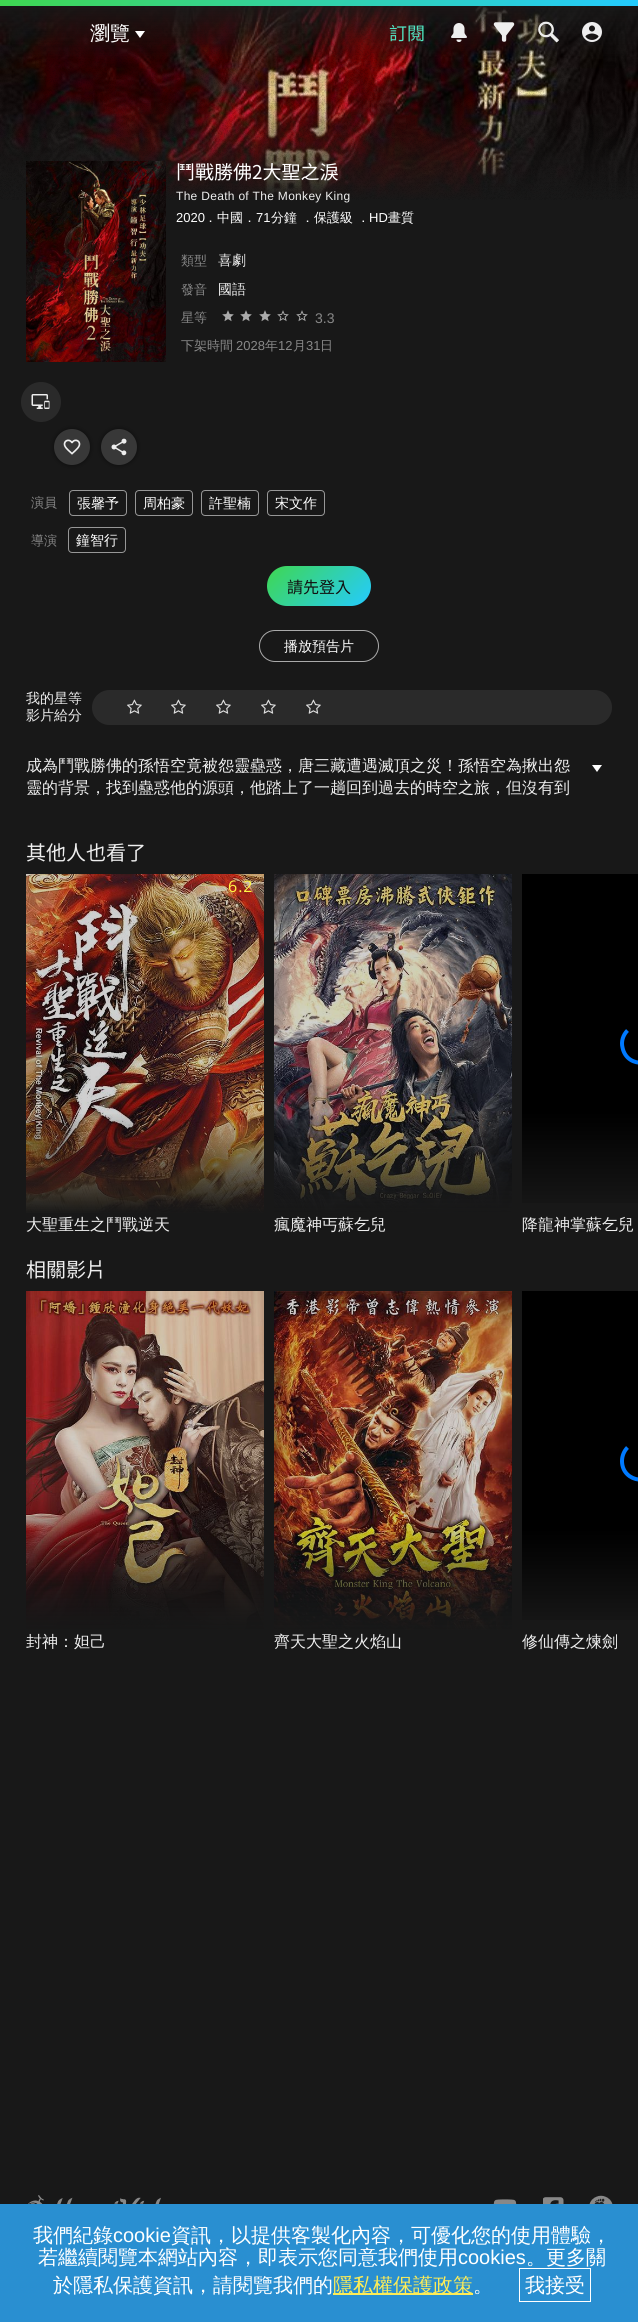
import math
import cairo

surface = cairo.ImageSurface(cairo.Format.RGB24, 638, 2322)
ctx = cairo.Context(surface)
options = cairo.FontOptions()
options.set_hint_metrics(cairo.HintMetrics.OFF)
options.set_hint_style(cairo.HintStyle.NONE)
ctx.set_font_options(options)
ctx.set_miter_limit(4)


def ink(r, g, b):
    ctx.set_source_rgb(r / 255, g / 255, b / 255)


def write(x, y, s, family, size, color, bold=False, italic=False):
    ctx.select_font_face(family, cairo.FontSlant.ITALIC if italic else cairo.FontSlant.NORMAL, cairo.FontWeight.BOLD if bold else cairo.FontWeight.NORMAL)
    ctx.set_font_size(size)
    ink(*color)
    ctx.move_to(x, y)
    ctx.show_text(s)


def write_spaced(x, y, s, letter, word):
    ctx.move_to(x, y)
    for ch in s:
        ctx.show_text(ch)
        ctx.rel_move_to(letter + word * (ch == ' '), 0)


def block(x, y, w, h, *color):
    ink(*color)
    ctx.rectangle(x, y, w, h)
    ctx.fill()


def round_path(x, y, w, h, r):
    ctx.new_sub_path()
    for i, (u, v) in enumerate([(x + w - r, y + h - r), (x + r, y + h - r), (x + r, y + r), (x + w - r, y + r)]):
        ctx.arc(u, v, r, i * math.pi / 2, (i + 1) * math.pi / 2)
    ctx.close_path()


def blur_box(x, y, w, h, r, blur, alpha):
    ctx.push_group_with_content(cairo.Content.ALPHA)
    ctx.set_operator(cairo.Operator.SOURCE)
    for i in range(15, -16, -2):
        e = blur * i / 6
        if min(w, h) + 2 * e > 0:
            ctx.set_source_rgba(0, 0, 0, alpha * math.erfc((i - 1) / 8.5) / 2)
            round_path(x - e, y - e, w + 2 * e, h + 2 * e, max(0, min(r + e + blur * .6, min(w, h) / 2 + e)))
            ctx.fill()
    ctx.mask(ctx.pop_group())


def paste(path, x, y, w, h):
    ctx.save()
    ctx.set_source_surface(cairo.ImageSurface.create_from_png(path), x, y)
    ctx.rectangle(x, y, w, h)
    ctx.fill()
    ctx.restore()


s1 = dict(family="WenQuanYi Zen Hei Medium", size=20, color=(255, 255, 255))
s2 = dict(family="Noto Sans TC Thin", size=18, color=(80, 227, 194))
s3 = dict(family="Noto Sans TC Thin", size=19, color=(255, 255, 255))
s4 = dict(family="Liberation Sans", size=13, color=(255, 255, 255))
s5 = dict(family="WenQuanYi Zen Hei Medium", size=13, color=(255, 255, 255))
s6 = dict(family="WenQuanYi Zen Hei Medium", size=13, color=(136, 136, 136))
s7 = dict(family="WenQuanYi Zen Hei Medium", size=14, color=(238, 238, 238))
s8 = dict(family="Liberation Sans", size=14, color=(136, 136, 136))
s9 = dict(family="Liberation Sans", size=13, color=(136, 136, 136))
s10 = dict(family="WenQuanYi Zen Hei Medium", size=14, color=(255, 255, 255))
s11 = dict(family="Noto Sans TC Thin", size=16, color=(17, 17, 17))
s12 = dict(family="WenQuanYi Zen Hei Medium", size=16, color=(238, 238, 238))
s13 = dict(family="Noto Sans TC Thin", size=20, color=(238, 238, 238))
s14 = dict(family="Liberation Sans", size=20, color=(255, 255, 255))
s15 = dict(family="WenQuanYi Zen Hei Medium", size=20, color=(253, 236, 87))

ink(24, 24, 24)
ctx.paint()
paste("pic5.png", 0, 6, 638, 193)
paste("pic6.png", 0, 6, 638, 194)
gradient = cairo.LinearGradient(319, 0, 319, 60)
gradient.add_color_stop_rgba(0, 0.094, 0.094, 0.094, 1)
gradient.add_color_stop_rgba(1, 0.094, 0.094, 0.094, 0)
ctx.set_source(gradient)
ctx.rectangle(0, 6, 638, 53)
ctx.fill()
gradient = cairo.LinearGradient(156, -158, 482, 164)
gradient.add_color_stop_rgba(0, 0.247, 0.843, 0.314, 1)
gradient.add_color_stop_rgba(1, 0.141, 0.796, 1, 1)
ctx.set_source(gradient)
ctx.rectangle(0, 0, 638, 6)
ctx.fill()
write(90, 40, "瀏覽", **s1)
ctx.new_path()
ctx.move_to(135, 31)
ctx.line_to(145, 31)
ctx.line_to(140, 38)
ctx.close_path()
ctx.fill()
write(389, 40, "訂閱", **s2)
paste("pic1.png", 451, 23, 16, 19)
paste("pic2.png", 493, 22, 22, 20)
paste("pic3.png", 538, 21, 21, 22)
paste("pic4.png", 582, 22, 20, 20)
paste("pic7.png", 26, 161, 140, 201)
ink(0, 0, 0)
blur_box(54, 429, 36, 36, 18, 2.5, 0.5)
ink(42, 42, 42)
ctx.arc(41, 402, 20, 0, 2 * math.pi)
ctx.fill()
paste("pic8.png", 31, 394, 19, 15)
ink(56, 56, 56)
ctx.arc(72, 447, 18, 0, 2 * math.pi)
ctx.fill()
paste("pic9.png", 63, 439, 18, 16)
ink(0, 0, 0)
blur_box(101, 429, 36, 36, 18, 2.5, 0.5)
ink(56, 56, 56)
ctx.arc(119, 447, 18, 0, 2 * math.pi)
ctx.fill()
paste("pic10.png", 111, 438, 16, 18)
write(176, 179, "鬥戰勝佛2大聖之淚", **s3)
ctx.select_font_face("Liberation Sans")
ctx.set_font_size(12)
ink(238, 238, 238)
write_spaced(176, 200, "The Death of The Monkey King", 0.3, 0)
write(176, 222, "2020", **s4)
write(204, 222, "．中國．", **s5)
write(256, 222, "71", **s4)
write(271, 222, "分鐘 ．保護級 ．", **s5)
write(369, 222, "HD", **s4)
write(388, 222, "畫質", **s5)
write(181, 265, "類型", **s6)
write(218, 265, "喜劇", **s7)
write(181, 294, "發音", **s6)
write(218, 294, "國語", **s7)
write(181, 322, "星等", **s6)
paste("pic11.png", 222, 310, 12, 12)
paste("pic11.png", 240, 310, 12, 12)
paste("pic11.png", 259, 310, 12, 12)
paste("pic12.png", 277, 310, 12, 12)
paste("pic12.png", 296, 310, 12, 12)
write(315, 323, "3.3", **s8)
write(181, 350, "下架時間", **s6)
write(236, 350, "2028", **s9)
write(265, 350, "年", **s6)
write(278, 350, "12", **s9)
write(293, 350, "月", **s6)
write(306, 350, "31", **s9)
write(320, 350, "日", **s6)
write(31, 507, "演員", **s6)
round_path(69.5, 490.5, 57, 25, 3.5)
ink(151, 151, 151)
ctx.set_line_width(1)
ctx.stroke()
write(77, 508, "張馨予", **s10)
round_path(135.5, 490.5, 57, 25, 3.5)
ink(151, 151, 151)
ctx.stroke()
write(143, 508, "周柏豪", **s10)
round_path(201.5, 490.5, 57, 25, 3.5)
ink(151, 151, 151)
ctx.stroke()
write(209, 508, "許聖楠", **s10)
round_path(267.5, 490.5, 57, 25, 3.5)
ink(151, 151, 151)
ctx.stroke()
write(275, 508, "宋文作", **s10)
write(31, 545, "導演", **s6)
round_path(68.5, 527.5, 57, 25, 3.5)
ink(151, 151, 151)
ctx.stroke()
write(76, 545, "鐘智行", **s10)
gradient = cairo.LinearGradient(283, 550, 355, 622)
gradient.add_color_stop_rgba(0, 0.247, 0.843, 0.314, 1)
gradient.add_color_stop_rgba(1, 0.141, 0.796, 1, 1)
ctx.set_source(gradient)
round_path(267, 566, 104, 40, 20)
ctx.fill()
write(287, 593, "請先登入", **s11)
round_path(259.5, 630.5, 119, 31, 15.5)
ink(170, 170, 170)
ctx.stroke()
write(284, 651, "播放預告片", **s10)
write(26, 703, "我的星等", **s7)
write(26, 720, "影片給分", **s7)
ink(42, 42, 42)
round_path(92, 690, 520, 35, 17.5)
ctx.fill()
paste("pic13.png", 127, 699, 15, 15)
paste("pic13.png", 171, 699, 15, 15)
paste("pic13.png", 216, 699, 15, 15)
paste("pic13.png", 261, 699, 15, 15)
paste("pic13.png", 306, 699, 15, 15)
write(26, 771, "成為鬥戰勝佛的孫悟空竟被怨靈蠱惑，唐三藏遭遇滅頂之災！孫悟空為揪出怨", **s12)
write(26, 793, "靈的背景，找到蠱惑他的源頭，他踏上了一趟回到過去的時空之旅，但沒有到", **s12)
ink(255, 255, 255)
ctx.new_path()
ctx.move_to(592, 765)
ctx.line_to(602, 765)
ctx.line_to(597, 772)
ctx.close_path()
ctx.fill()
write(26, 860, "其他人也看了", **s13)
paste("pic14.png", 26, 874, 238, 339)
ctx.select_font_face("Open Sans")
ctx.set_font_size(16)
ink(255, 246, 70)
write_spaced(228, 892, "6.2", 1, 0)
gradient = cairo.LinearGradient(145, 874, 145, 1214)
gradient.add_color_stop_rgba(0.7, 0.094, 0.094, 0.094, 0)
gradient.add_color_stop_rgba(1, 0.094, 0.094, 0.094, 1)
ctx.set_source(gradient)
ctx.rectangle(26, 1114, 238, 99)
ctx.fill()
write(26, 1230, "大聖重生之鬥戰逆天", **s12)
paste("pic15.png", 274, 874, 238, 339)
gradient = cairo.LinearGradient(393, 874, 393, 1214)
gradient.add_color_stop_rgba(0.7, 0.094, 0.094, 0.094, 0)
gradient.add_color_stop_rgba(1, 0.094, 0.094, 0.094, 1)
ctx.set_source(gradient)
ctx.rectangle(274, 1114, 238, 99)
ctx.fill()
write(274, 1230, "瘋魔神丐蘇乞兒", **s12)
gradient = cairo.LinearGradient(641, 874, 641, 1214)
gradient.add_color_stop_rgba(0.7, 0, 0, 0, 1)
gradient.add_color_stop_rgba(1, 0.094, 0.094, 0.094, 1)
ctx.set_source(gradient)
ctx.rectangle(522, 874, 116, 329)
ctx.fill()
ctx.new_path()
ctx.move_to(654.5, 1030.5)
ctx.curve_to(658, 1034, 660, 1039, 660, 1044)
ctx.curve_to(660, 1066.5, 627, 1070, 622.5, 1047.5)
ctx.curve_to(621, 1041.5, 623, 1035, 627.5, 1030.5)
ink(0, 122, 255)
ctx.set_line_width(4)
ctx.stroke()
write(522, 1230, "降龍神掌蘇乞兒", **s12)
write(26, 1277, "相關影片", **s13)
paste("pic16.png", 26, 1291, 238, 339)
gradient = cairo.LinearGradient(145, 1291, 145, 1631)
gradient.add_color_stop_rgba(0.7, 0.094, 0.094, 0.094, 0)
gradient.add_color_stop_rgba(1, 0.094, 0.094, 0.094, 1)
ctx.set_source(gradient)
ctx.rectangle(26, 1531, 238, 99)
ctx.fill()
write(26, 1647, "封神：妲己", **s12)
paste("pic17.png", 274, 1291, 238, 339)
gradient = cairo.LinearGradient(393, 1291, 393, 1631)
gradient.add_color_stop_rgba(0.7, 0.094, 0.094, 0.094, 0)
gradient.add_color_stop_rgba(1, 0.094, 0.094, 0.094, 1)
ctx.set_source(gradient)
ctx.rectangle(274, 1531, 238, 99)
ctx.fill()
write(274, 1647, "齊天大聖之火焰山", **s12)
gradient = cairo.LinearGradient(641, 1291, 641, 1631)
gradient.add_color_stop_rgba(0.7, 0, 0, 0, 1)
gradient.add_color_stop_rgba(1, 0.094, 0.094, 0.094, 1)
ctx.set_source(gradient)
ctx.rectangle(522, 1291, 116, 329)
ctx.fill()
ctx.new_path()
ctx.move_to(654.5, 1447.5)
ctx.curve_to(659, 1452, 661, 1458.5, 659.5, 1464.5)
ctx.curve_to(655, 1487, 622, 1483.5, 622, 1461)
ctx.curve_to(622, 1456, 624, 1451, 627.5, 1447.5)
ink(0, 122, 255)
ctx.stroke()
write(522, 1647, "修仙傳之煉劍", **s12)
paste("pic18.png", 28, 2195, 133, 9)
paste("pic19.png", 493, 2199, 24, 5)
paste("pic20.png", 543, 2197, 21, 7)
paste("pic21.png", 589, 2195, 24, 9)
block(0, 2204, 638, 118, 41, 143, 209)
write(33, 2242, "我們紀錄", **s1)
write(113, 2242, "cookie", **s14)
write(171, 2242, "資訊，以提供客製化內容，可優化您的使用體驗，", **s1)
write(38, 2264, "若繼續閱覽本網站內容，即表示您同意我們使用", **s1)
write(458, 2264, "cookies", **s14)
write(526, 2264, "。更多關", **s1)
write(53, 2292, "於隱私保護資訊，請閱覽我們的", **s1)
block(333, 2293, 140, 2, 253, 236, 87)
write(333, 2292, "隱私權保護政策", **s15)
write(473, 2292, "。", **s1)
ctx.rectangle(519.5, 2268.5, 71, 33)
ctx.set_line_width(1)
ctx.stroke()
write(525, 2292, "我接受", **s1)
surface.write_to_png("screenshot.png")
